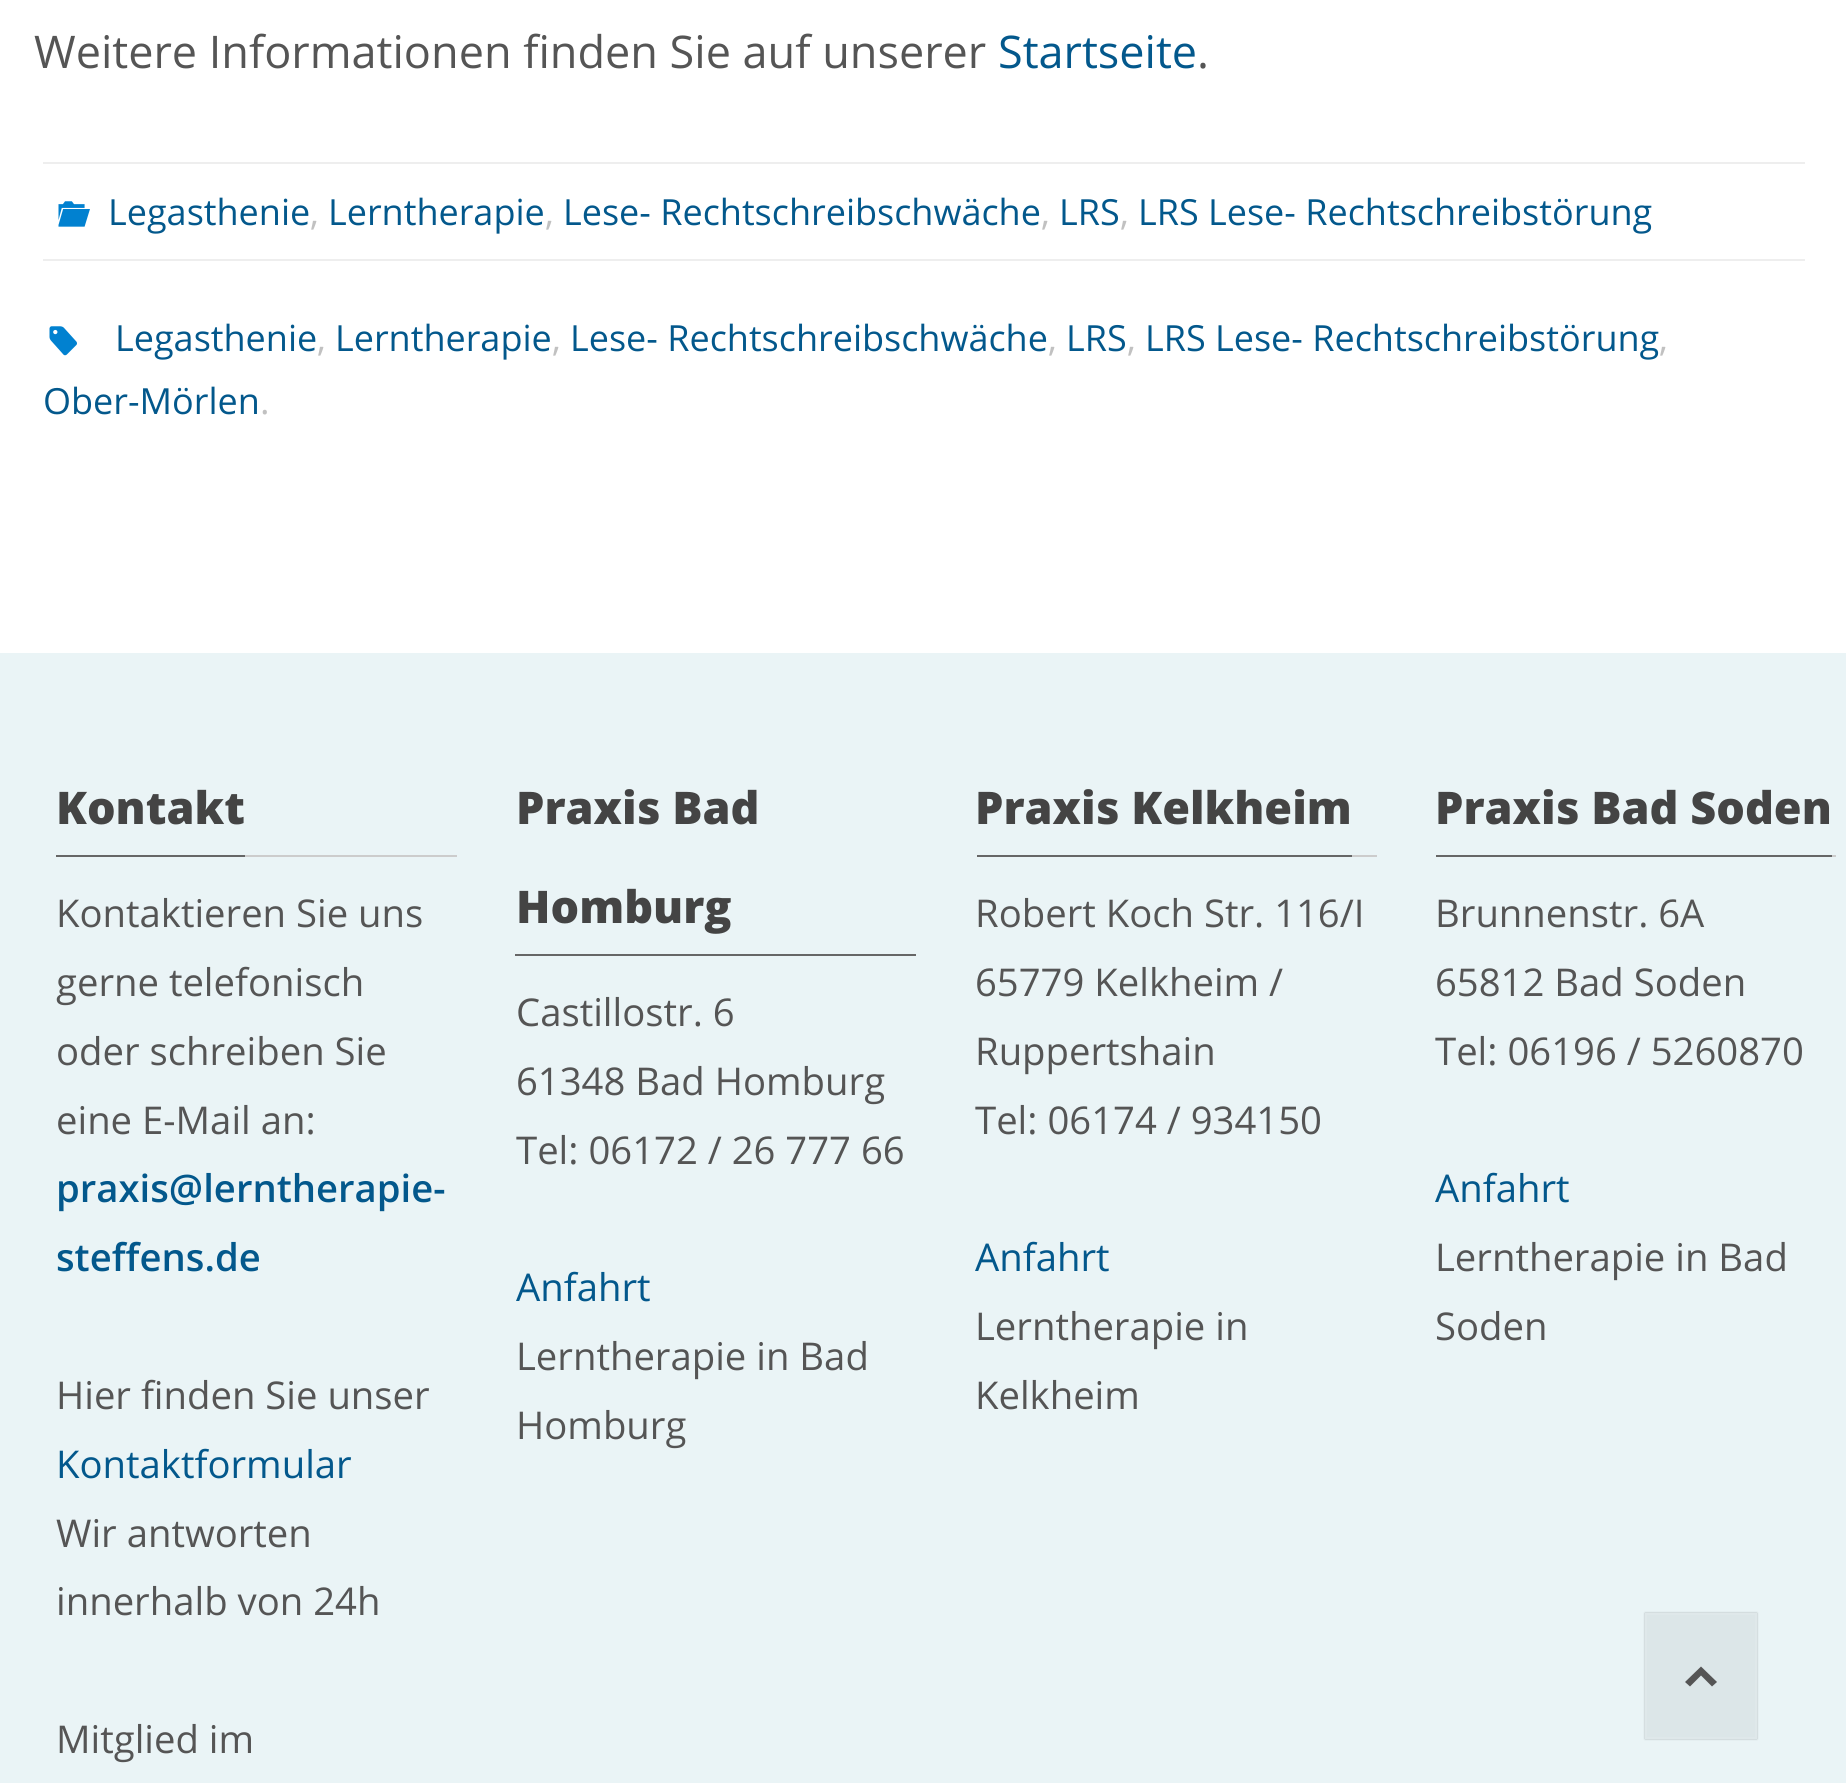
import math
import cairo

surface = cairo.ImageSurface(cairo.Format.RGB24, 1846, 1783)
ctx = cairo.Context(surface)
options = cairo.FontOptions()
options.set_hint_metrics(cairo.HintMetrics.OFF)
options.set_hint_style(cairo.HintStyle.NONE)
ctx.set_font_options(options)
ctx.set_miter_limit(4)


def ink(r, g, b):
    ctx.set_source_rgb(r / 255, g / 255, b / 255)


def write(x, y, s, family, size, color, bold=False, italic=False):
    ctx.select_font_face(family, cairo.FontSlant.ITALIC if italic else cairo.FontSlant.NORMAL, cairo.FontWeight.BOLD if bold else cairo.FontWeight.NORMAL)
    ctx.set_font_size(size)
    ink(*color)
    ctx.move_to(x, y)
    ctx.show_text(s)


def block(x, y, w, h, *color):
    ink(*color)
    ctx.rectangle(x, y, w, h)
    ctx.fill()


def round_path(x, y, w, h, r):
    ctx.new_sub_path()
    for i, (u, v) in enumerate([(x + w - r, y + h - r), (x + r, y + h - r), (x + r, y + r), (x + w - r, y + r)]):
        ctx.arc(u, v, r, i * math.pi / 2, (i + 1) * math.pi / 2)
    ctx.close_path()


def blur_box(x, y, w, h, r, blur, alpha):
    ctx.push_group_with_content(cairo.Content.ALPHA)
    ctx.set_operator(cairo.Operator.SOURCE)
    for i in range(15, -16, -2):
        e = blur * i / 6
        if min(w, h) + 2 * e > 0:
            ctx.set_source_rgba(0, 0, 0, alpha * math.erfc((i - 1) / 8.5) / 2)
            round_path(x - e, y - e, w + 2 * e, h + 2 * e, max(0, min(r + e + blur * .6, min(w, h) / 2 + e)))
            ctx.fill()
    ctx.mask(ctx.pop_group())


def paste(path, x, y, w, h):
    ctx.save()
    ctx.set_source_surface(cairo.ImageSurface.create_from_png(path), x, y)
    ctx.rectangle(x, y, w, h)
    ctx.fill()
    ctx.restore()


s1 = dict(family="Open Sans", size=45, color=(85, 85, 85))
s2 = dict(family="Open Sans", size=45, color=(3, 88, 140))
s3 = dict(family="Open Sans", size=36, color=(3, 88, 140))
s4 = dict(family="Open Sans", size=36, color=(193, 193, 193))
s5 = dict(family="Open Sans ExtraBold", size=45, color=(68, 68, 68))
s6 = dict(family="Open Sans", size=38.25, color=(85, 85, 85))
s7 = dict(family="Open Sans SemiBold", size=38.25, color=(3, 88, 140))
s8 = dict(family="Open Sans", size=38.25, color=(3, 88, 140))

ink(255, 255, 255)
ctx.paint()
write(34, 68, "Weitere Informationen finden Sie auf unserer", **s1)
write(998, 68, "Startseite", **s2)
write(1197, 68, ".", **s1)
block(43, 162, 1762, 2, 238, 238, 238)
block(43, 259, 1762, 2, 238, 238, 238)
paste("pic1.png", 58, 201, 32, 26)
write(108, 225, "Legasthenie", **s3)
write(310, 225, ",", **s4)
write(328, 225, "Lerntherapie", **s3)
write(545, 225, ",", **s4)
write(563, 225, "Lese- Rechtschreibschwäche", **s3)
write(1041, 225, ",", **s4)
write(1059, 225, "LRS", **s3)
write(1120, 225, ",", **s4)
write(1138, 225, "LRS Lese- Rechtschreibstörung", **s3)
paste("pic2.png", 49, 326, 28, 30)
write(115, 351, "Legasthenie", **s3)
write(317, 351, ",", **s4)
write(335, 351, "Lerntherapie", **s3)
write(552, 351, ",", **s4)
write(570, 351, "Lese- Rechtschreibschwäche", **s3)
write(1048, 351, ",", **s4)
write(1066, 351, "LRS", **s3)
write(1127, 351, ",", **s4)
write(1145, 351, "LRS Lese- Rechtschreibstörung", **s3)
write(1659, 351, ",", **s4)
write(43, 414, "Ober-Mörlen", **s3)
write(260, 414, ".", **s4)
block(0, 653, 1846, 1130, 234, 244, 246)
block(245, 855, 212, 2, 204, 204, 204)
block(56, 855, 189, 2, 102, 102, 102)
write(56, 824, "Kontakt", **s5)
write(56, 927, "Kontaktieren Sie uns", **s6)
write(56, 996, "gerne telefonisch", **s6)
write(56, 1065, "oder schreiben Sie", **s6)
write(56, 1134, "eine E-Mail an:", **s6)
write(56, 1202, "praxis@lerntherapie-", **s7)
write(56, 1271, "steffens.de", **s7)
write(56, 1409, "Hier finden Sie unser", **s6)
write(56, 1478, "Kontaktformular", **s8)
write(56, 1547, "Wir antworten", **s6)
write(56, 1615, "innerhalb von 24h", **s6)
write(56, 1753, "Mitglied im", **s6)
block(515, 954, 401, 2, 102, 102, 102)
write(516, 824, "Praxis Bad", **s5)
write(516, 923, "Homburg", **s5)
write(516, 1026, "Castillostr. 6", **s6)
write(516, 1095, "61348 Bad Homburg", **s6)
write(516, 1164, "Tel: 06172 / 26 777 66", **s6)
write(516, 1301, "Anfahrt", **s8)
write(516, 1370, "Lerntherapie in Bad", **s6)
write(516, 1439, "Homburg", **s6)
block(1352, 855, 25, 2, 204, 204, 204)
block(977, 855, 375, 2, 102, 102, 102)
write(975, 824, "Praxis Kelkheim", **s5)
write(975, 927, "Robert Koch Str. 116/I", **s6)
write(975, 996, "65779 Kelkheim /", **s6)
write(975, 1065, "Ruppertshain", **s6)
write(975, 1134, "Tel: 06174 / 934150", **s6)
write(975, 1271, "Anfahrt", **s8)
write(975, 1340, "Lerntherapie in", **s6)
write(975, 1409, "Kelkheim", **s6)
block(1832, 855, 4, 2, 204, 204, 204)
block(1436, 855, 396, 2, 102, 102, 102)
write(1435, 824, "Praxis Bad Soden", **s5)
write(1435, 927, "Brunnenstr. 6A", **s6)
write(1435, 996, "65812 Bad Soden", **s6)
write(1435, 1065, "Tel: 06196 / 5260870", **s6)
write(1435, 1202, "Anfahrt", **s8)
write(1435, 1271, "Lerntherapie in Bad", **s6)
write(1435, 1340, "Soden", **s6)
ctx.save()
ctx.set_fill_rule(cairo.FillRule.EVEN_ODD)
ctx.new_path()
ctx.move_to(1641, 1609)
ctx.line_to(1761, 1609)
ctx.line_to(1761, 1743)
ctx.line_to(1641, 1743)
ctx.close_path()
ctx.move_to(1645, 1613)
ctx.line_to(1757, 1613)
ctx.line_to(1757, 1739)
ctx.line_to(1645, 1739)
ctx.close_path()
ctx.clip()
ink(0, 0, 0)
blur_box(1645, 1613, 112, 126, 0, 1, 0.28)
ctx.restore()
ctx.set_source_rgba(0, 0, 0, 0.06)
ctx.rectangle(1645, 1613, 112, 126)
ctx.fill()
ctx.rectangle(1646, 1614, 110, 124)
ctx.set_source_rgba(1, 1, 1, 0.1)
ctx.stroke()
ink(85, 85, 85)
ctx.new_path()
ctx.move_to(1685, 1682)
ctx.line_to(1701, 1666.5)
ctx.line_to(1717, 1682)
ctx.line_to(1712, 1686.5)
ctx.line_to(1701, 1675.5)
ctx.line_to(1690, 1686.5)
ctx.close_path()
ctx.fill()
surface.write_to_png("screenshot.png")
